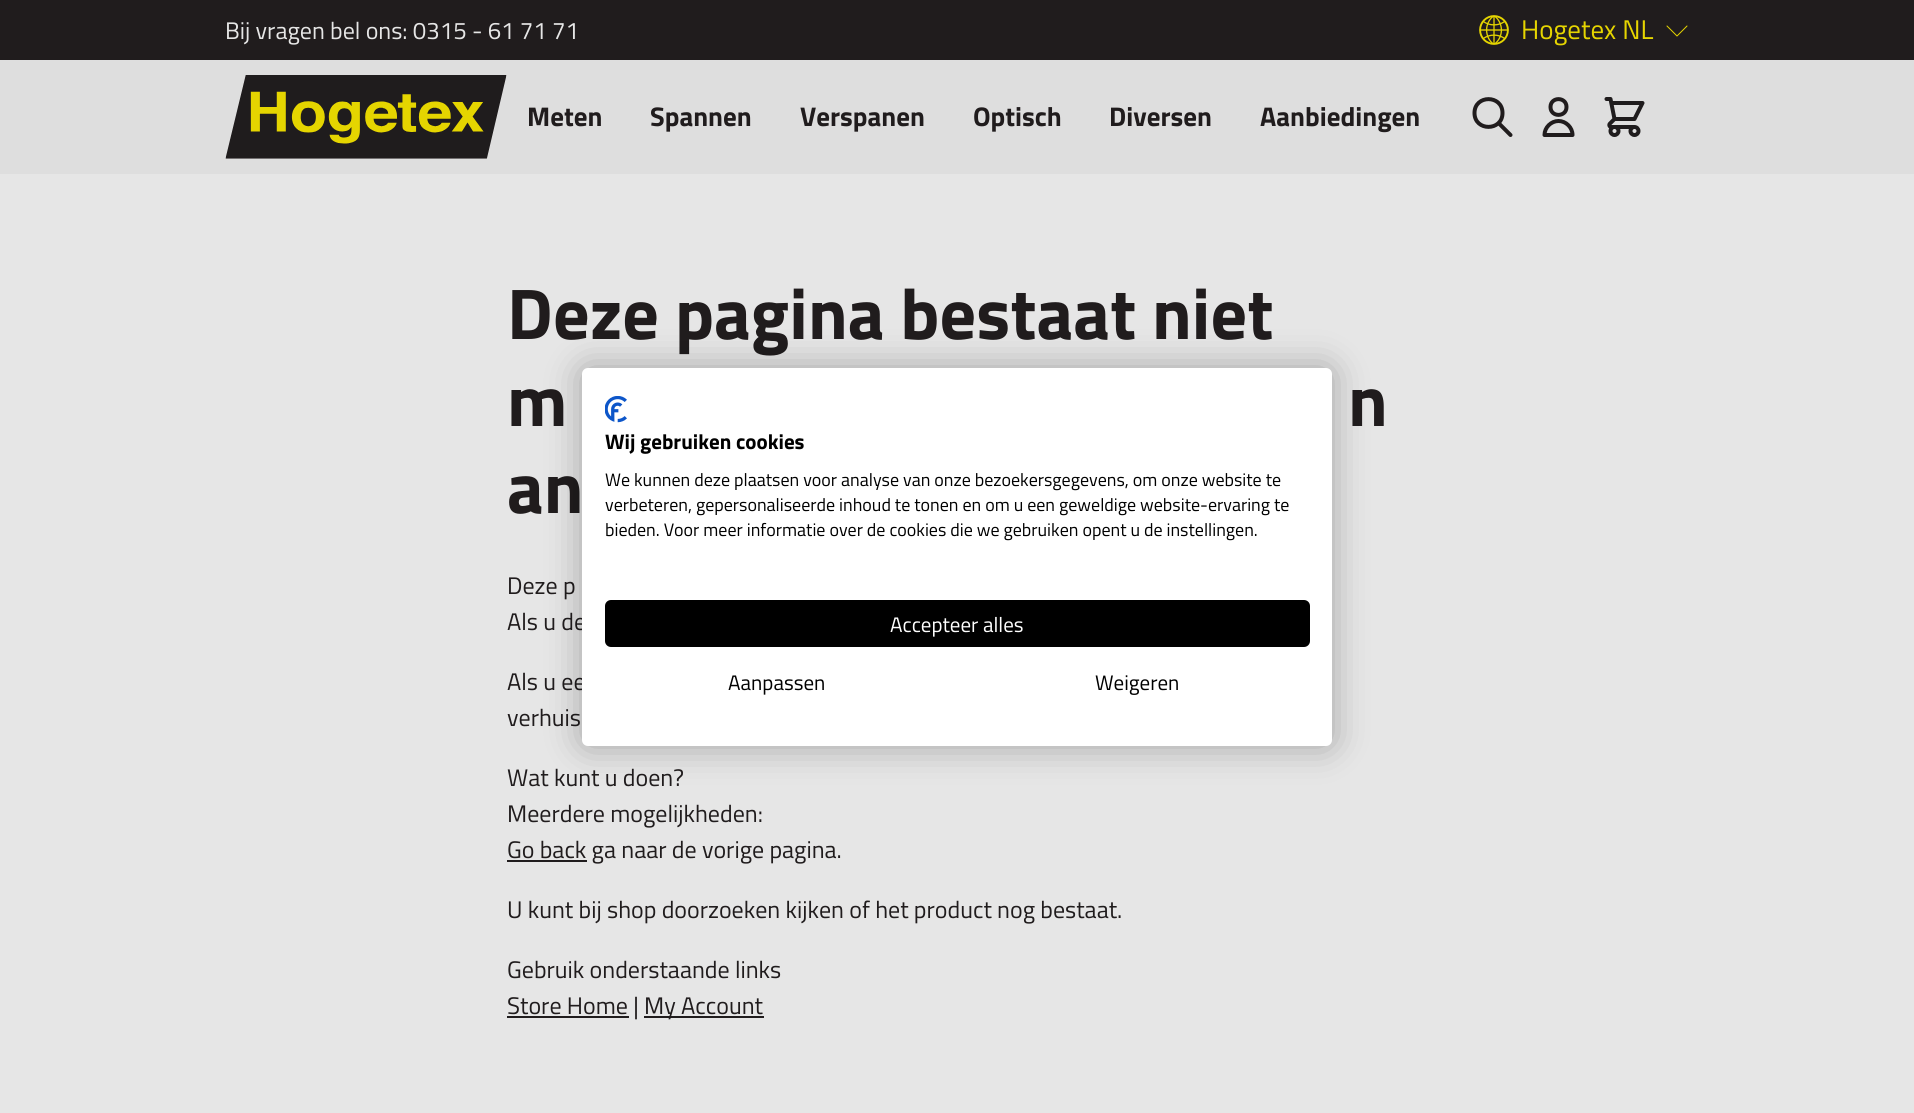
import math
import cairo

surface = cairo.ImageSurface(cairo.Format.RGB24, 1914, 1113)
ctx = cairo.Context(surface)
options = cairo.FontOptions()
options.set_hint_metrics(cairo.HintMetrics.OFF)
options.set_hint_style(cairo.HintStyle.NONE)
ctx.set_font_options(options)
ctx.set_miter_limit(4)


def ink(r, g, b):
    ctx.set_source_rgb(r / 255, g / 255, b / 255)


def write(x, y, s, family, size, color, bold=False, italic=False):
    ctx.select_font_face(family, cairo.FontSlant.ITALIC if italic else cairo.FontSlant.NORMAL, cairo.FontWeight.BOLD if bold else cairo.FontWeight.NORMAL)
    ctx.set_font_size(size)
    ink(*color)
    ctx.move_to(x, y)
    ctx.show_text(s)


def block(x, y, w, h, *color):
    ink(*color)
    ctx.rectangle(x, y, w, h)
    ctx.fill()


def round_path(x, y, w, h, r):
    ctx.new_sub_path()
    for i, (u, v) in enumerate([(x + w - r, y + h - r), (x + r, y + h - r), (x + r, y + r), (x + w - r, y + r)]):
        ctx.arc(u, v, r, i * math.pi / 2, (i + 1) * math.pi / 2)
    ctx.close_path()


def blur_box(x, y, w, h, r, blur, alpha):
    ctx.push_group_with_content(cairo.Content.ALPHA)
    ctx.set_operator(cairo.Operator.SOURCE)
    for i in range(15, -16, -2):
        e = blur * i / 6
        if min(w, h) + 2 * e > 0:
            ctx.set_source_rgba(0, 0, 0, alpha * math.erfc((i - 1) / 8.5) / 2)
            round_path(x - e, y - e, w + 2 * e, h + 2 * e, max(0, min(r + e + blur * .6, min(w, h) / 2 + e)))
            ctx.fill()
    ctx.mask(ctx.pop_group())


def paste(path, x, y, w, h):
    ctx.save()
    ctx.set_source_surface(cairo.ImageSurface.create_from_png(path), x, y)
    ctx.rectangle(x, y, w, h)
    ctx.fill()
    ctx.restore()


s1 = dict(family="Titillium Web", size=24, color=(230, 230, 230))
s2 = dict(family="Titillium Web", size=27, color=(230, 213, 0))
s3 = dict(family="Titillium Web", size=27, color=(32, 28, 29), bold=True)
s4 = dict(family="Titillium Web", size=72, color=(32, 28, 29), bold=True)
s5 = dict(family="Titillium Web", size=24, color=(32, 28, 29))
s6 = dict(family="Titillium Web", size=21, color=(0, 0, 0), bold=True)
s7 = dict(family="Titillium Web", size=18, color=(0, 0, 0))
s8 = dict(family="Titillium Web", size=21, color=(255, 255, 255))
s9 = dict(family="Titillium Web", size=21, color=(0, 0, 0))

ink(230, 230, 230)
ctx.paint()
block(0, 0, 1914, 60, 32, 28, 29)
write(225, 39, "Bij vragen bel ons: 0315 - 61 71 71", **s1)
paste("pic1.png", 1479, 15, 30, 30)
write(1521, 39, "Hogetex NL", **s2)
ctx.new_path()
ctx.move_to(1687, 26)
ctx.line_to(1677, 36)
ctx.line_to(1667, 26)
ctx.set_line_width(1)
ctx.set_line_cap(cairo.LineCap.ROUND)
ctx.set_line_join(cairo.LineJoin.ROUND)
ctx.stroke()
block(0, 60, 1914, 114, 222, 222, 222)
paste("pic2.png", 225, 75, 282, 84)
write(527, 126, "Meten", **s3)
write(650, 126, "Spannen", **s3)
write(800, 126, "Verspanen", **s3)
write(973, 126, "Optisch", **s3)
write(1109, 126, "Diversen", **s3)
write(1260, 126, "Aanbiedingen", **s3)
ctx.new_path()
ctx.move_to(1510.5, 135)
ctx.line_to(1498.5, 123)
ctx.move_to(1502.5, 113)
ctx.curve_to(1502.5, 131.5, 1474.5, 131.5, 1474.5, 113)
ctx.curve_to(1474.5, 94.5, 1502.5, 94.5, 1502.5, 113)
ctx.close_path()
ctx.set_line_width(4)
ctx.stroke()
ctx.new_path()
ctx.move_to(1566.5, 107)
ctx.curve_to(1566.5, 117.5, 1550.5, 117.5, 1550.5, 107)
ctx.curve_to(1550.5, 96.5, 1566.5, 96.5, 1566.5, 107)
ctx.close_path()
ctx.move_to(1558.5, 121)
ctx.curve_to(1551, 121, 1544.5, 127.5, 1544.5, 135)
ctx.line_to(1572.5, 135)
ctx.curve_to(1572.5, 127.5, 1566, 121, 1558.5, 121)
ctx.close_path()
ctx.stroke()
paste("pic3.png", 1604, 97, 41, 40)
write(507, 339, "Deze pagina bestaat niet", **s4)
write(507, 426, "m", **s4)
write(1348, 426, "n", **s4)
write(507, 513, "an", **s4)
write(507, 594, "Deze p", **s5)
write(507, 630, "Als u de", **s5)
write(507, 690, "Als u ee", **s5)
write(507, 726, "verhuis", **s5)
write(507, 786, "Wat kunt u doen?", **s5)
write(507, 822, "Meerdere mogelijkheden:", **s5)
block(507, 860, 80, 2, 32, 28, 29)
write(507, 858, "Go back ga naar de vorige pagina.", **s5)
write(507, 918, "U kunt bij shop doorzoeken kijken of het product nog bestaat.", **s5)
write(507, 978, "Gebruik onderstaande links", **s5)
block(507, 1016, 122, 2, 32, 28, 29)
write(507, 1014, "Store Home |", **s5)
block(644, 1016, 120, 2, 32, 28, 29)
write(644, 1014, "My Account", **s5)
ink(0, 0, 0)
blur_box(582, 368, 750, 378, 6, 18, 0.3)
ink(255, 255, 255)
round_path(582, 368, 750, 378, 6)
ctx.fill()
paste("pic4.png", 605, 396, 22, 27)
write(605, 449, "Wij gebruiken cookies", **s6)
write(605, 486, "We kunnen deze plaatsen voor analyse van onze bezoekersgegevens, om onze website te", **s7)
write(605, 511, "verbeteren, gepersonaliseerde inhoud te tonen en om u een geweldige website-ervaring te", **s7)
write(605, 536, "bieden. Voor meer informatie over de cookies die we gebruiken opent u de instellingen.", **s7)
round_path(606, 601, 703, 45, 5)
ctx.fill_preserve()
ctx.set_line_width(2)
ctx.set_line_cap(cairo.LineCap.BUTT)
ctx.set_line_join(cairo.LineJoin.MITER)
ctx.stroke()
write(890, 632, "Accepteer alles", **s8)
write(728, 690, "Aanpassen", **s9)
write(1095, 690, "Weigeren", **s9)
surface.write_to_png("screenshot.png")
